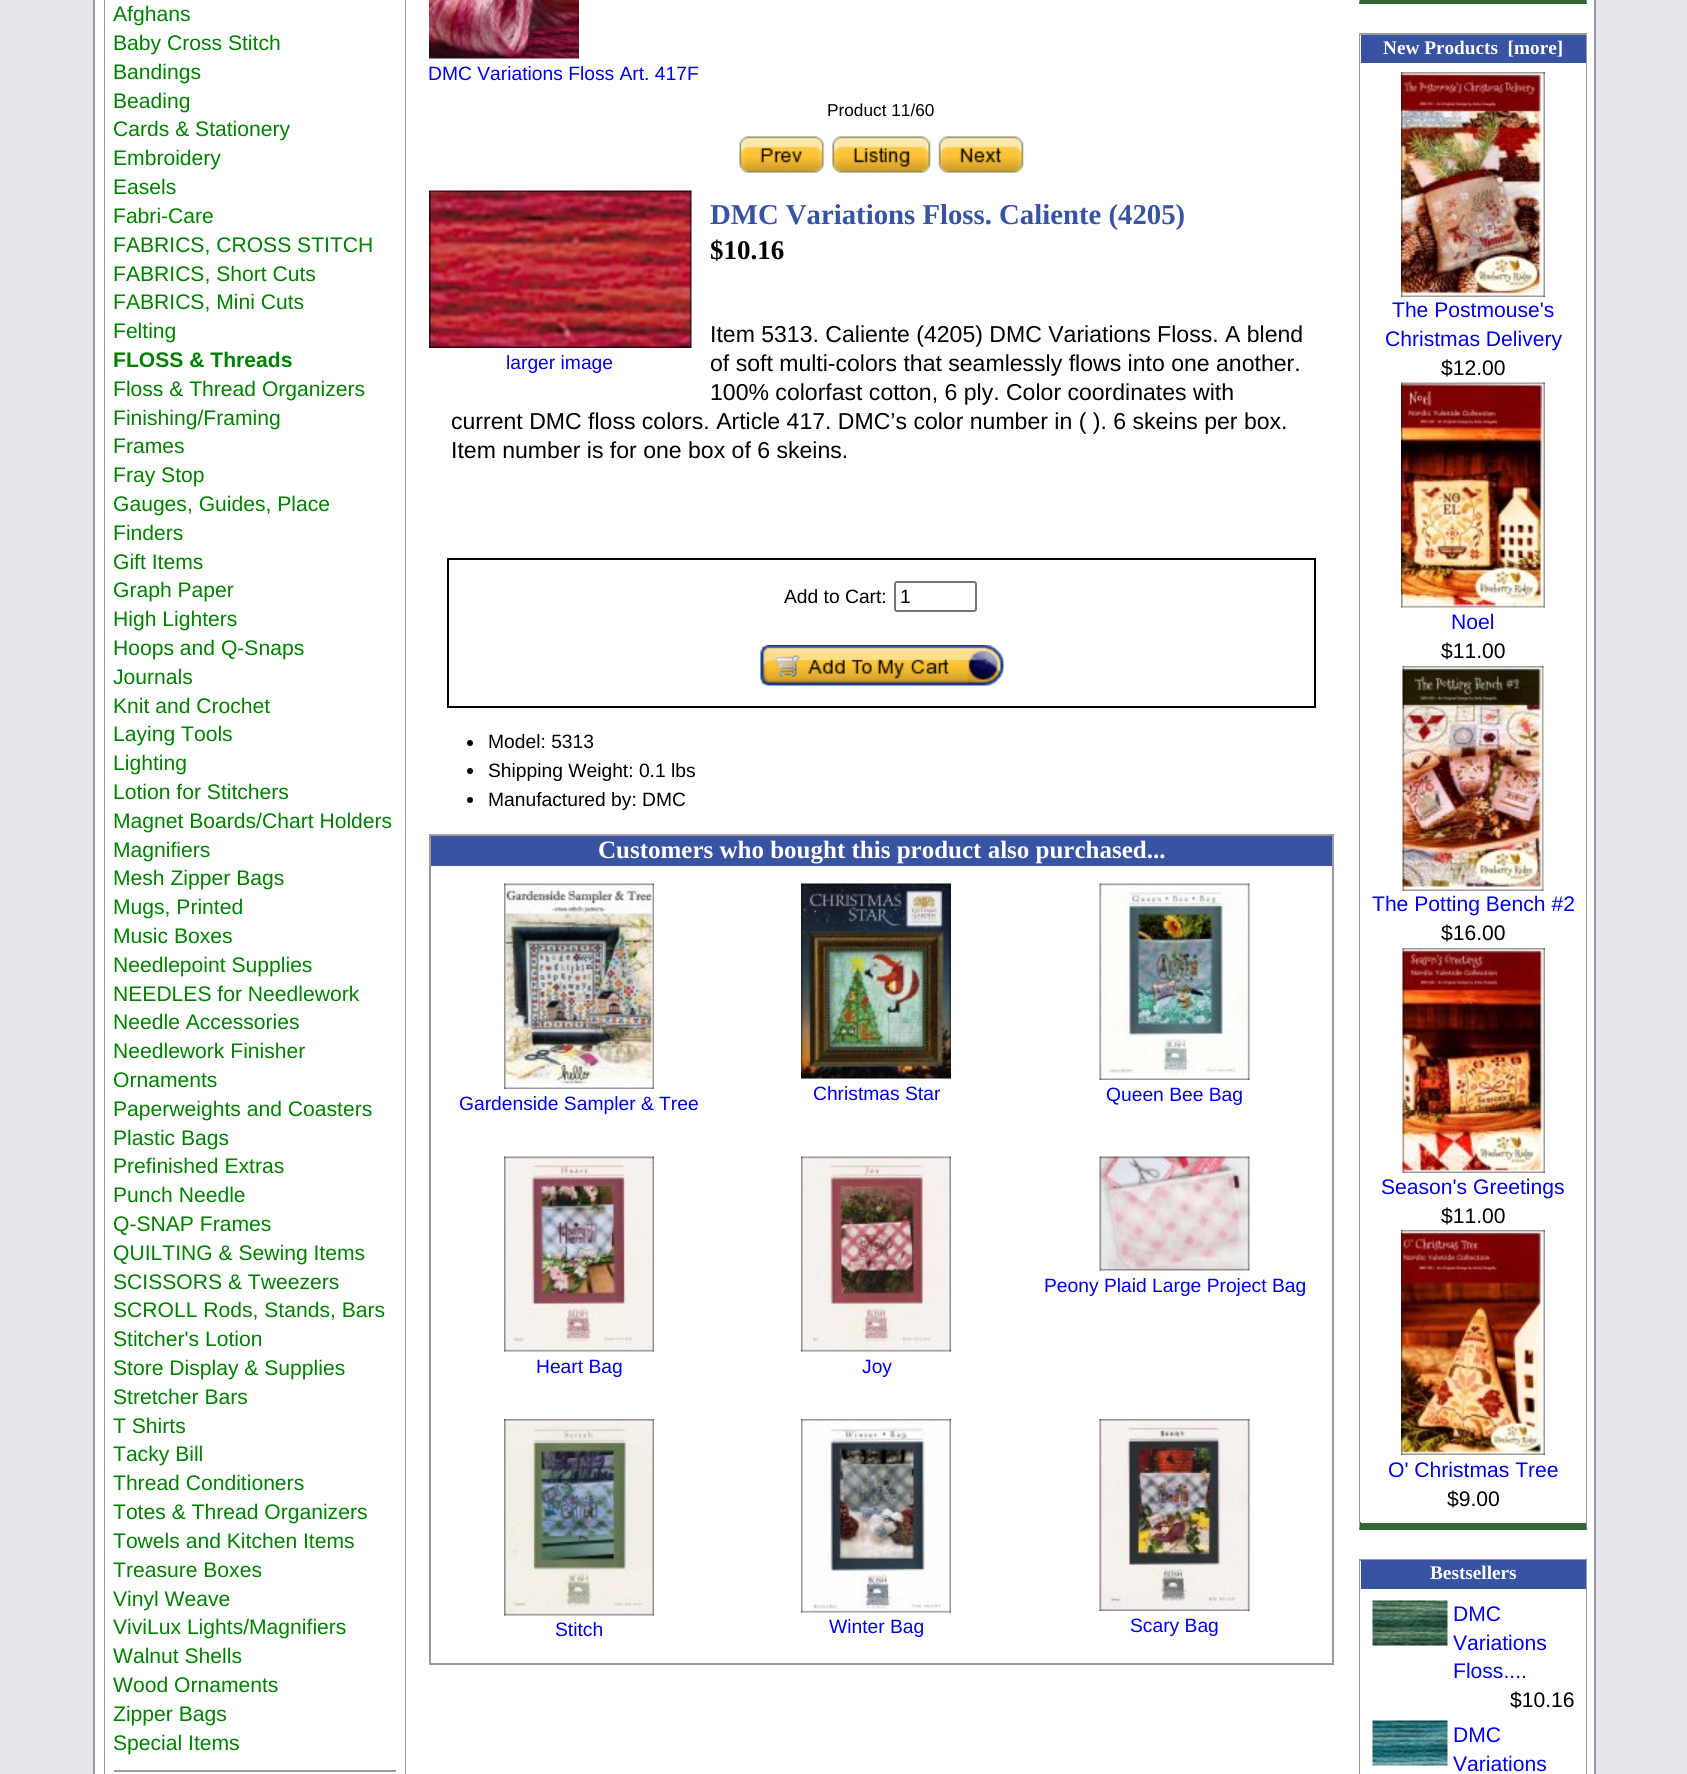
import math
import cairo

surface = cairo.ImageSurface(cairo.Format.RGB24, 1687, 1774)
ctx = cairo.Context(surface)
options = cairo.FontOptions()
options.set_hint_metrics(cairo.HintMetrics.OFF)
options.set_hint_style(cairo.HintStyle.NONE)
ctx.set_font_options(options)
ctx.set_miter_limit(4)


def ink(r, g, b):
    ctx.set_source_rgb(r / 255, g / 255, b / 255)


def write(x, y, s, family, size, color, bold=False, italic=False):
    ctx.select_font_face(family, cairo.FontSlant.ITALIC if italic else cairo.FontSlant.NORMAL, cairo.FontWeight.BOLD if bold else cairo.FontWeight.NORMAL)
    ctx.set_font_size(size)
    ink(*color)
    ctx.move_to(x, y)
    ctx.show_text(s)


def block(x, y, w, h, *color):
    ink(*color)
    ctx.rectangle(x, y, w, h)
    ctx.fill()


def round_path(x, y, w, h, r):
    ctx.new_sub_path()
    for i, (u, v) in enumerate([(x + w - r, y + h - r), (x + r, y + h - r), (x + r, y + r), (x + w - r, y + r)]):
        ctx.arc(u, v, r, i * math.pi / 2, (i + 1) * math.pi / 2)
    ctx.close_path()


def paste(path, x, y, w, h):
    ctx.save()
    ctx.set_source_surface(cairo.ImageSurface.create_from_png(path), x, y)
    ctx.rectangle(x, y, w, h)
    ctx.fill()
    ctx.restore()


s1 = dict(family="Liberation Sans", size=21.1, color=(0, 128, 0))
s2 = dict(family="Liberation Sans", size=21.1, color=(0, 128, 0), bold=True)
s3 = dict(family="Liberation Sans", size=19.25, color=(0, 0, 238))
s4 = dict(family="Liberation Sans", size=17.25, color=(0, 0, 0))
s5 = dict(family="Liberation Serif", size=28.75, color=(55, 83, 162), bold=True)
s6 = dict(family="Liberation Serif", size=27, color=(0, 0, 0), bold=True)
s7 = dict(family="Liberation Sans", size=23.05, color=(0, 0, 0))
s8 = dict(family="Liberation Sans", size=19.25, color=(0, 0, 0))
s9 = dict(family="Liberation Serif", size=25, color=(255, 255, 255), bold=True)
s10 = dict(family="Liberation Serif", size=19.25, color=(255, 255, 255), bold=True)
s11 = dict(family="Liberation Sans", size=21.1, color=(0, 0, 238))
s12 = dict(family="Liberation Sans", size=21.1, color=(0, 0, 0))

ink(229, 231, 237)
ctx.paint()
ink(255, 255, 255)
ctx.rectangle(94, -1, 1501, 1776)
ctx.fill_preserve()
ink(154, 154, 154)
ctx.stroke()
ctx.new_path()
ctx.move_to(406, -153)
ctx.line_to(406, 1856)
ctx.line_to(405, 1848)
ctx.line_to(405, -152)
ctx.close_path()
ctx.fill()
ctx.new_path()
ctx.move_to(104, 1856)
ctx.line_to(104, -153)
ctx.line_to(105, -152)
ctx.line_to(105, 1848)
ctx.close_path()
ctx.fill()
write(113, 21, "Afghans", **s1)
write(113, 50, "Baby Cross Stitch", **s1)
write(113, 79, "Bandings", **s1)
write(113, 108, "Beading", **s1)
write(113, 136, "Cards & Stationery", **s1)
write(113, 165, "Embroidery", **s1)
write(113, 194, "Easels", **s1)
write(113, 223, "Fabri-Care", **s1)
write(113, 252, "FABRICS, CROSS STITCH", **s1)
write(113, 281, "FABRICS, Short Cuts", **s1)
write(113, 309, "FABRICS, Mini Cuts", **s1)
write(113, 338, "Felting", **s1)
write(113, 367, "FLOSS & Threads", **s2)
write(113, 396, "Floss & Thread Organizers", **s1)
write(113, 425, "Finishing/Framing", **s1)
write(113, 453, "Frames", **s1)
write(113, 482, "Fray Stop", **s1)
write(113, 511, "Gauges, Guides, Place", **s1)
write(113, 540, "Finders", **s1)
write(113, 569, "Gift Items", **s1)
write(113, 597, "Graph Paper", **s1)
write(113, 626, "High Lighters", **s1)
write(113, 655, "Hoops and Q-Snaps", **s1)
write(113, 684, "Journals", **s1)
write(113, 713, "Knit and Crochet", **s1)
write(113, 741, "Laying Tools", **s1)
write(113, 770, "Lighting", **s1)
write(113, 799, "Lotion for Stitchers", **s1)
write(113, 828, "Magnet Boards/Chart Holders", **s1)
write(113, 857, "Magnifiers", **s1)
write(113, 885, "Mesh Zipper Bags", **s1)
write(113, 914, "Mugs, Printed", **s1)
write(113, 943, "Music Boxes", **s1)
write(113, 972, "Needlepoint Supplies", **s1)
write(113, 1001, "NEEDLES for Needlework", **s1)
write(113, 1029, "Needle Accessories", **s1)
write(113, 1058, "Needlework Finisher", **s1)
write(113, 1087, "Ornaments", **s1)
write(113, 1116, "Paperweights and Coasters", **s1)
write(113, 1145, "Plastic Bags", **s1)
write(113, 1173, "Prefinished Extras", **s1)
write(113, 1202, "Punch Needle", **s1)
write(113, 1231, "Q-SNAP Frames", **s1)
write(113, 1260, "QUILTING & Sewing Items", **s1)
write(113, 1289, "SCISSORS & Tweezers", **s1)
write(113, 1317, "SCROLL Rods, Stands, Bars", **s1)
write(113, 1346, "Stitcher's Lotion", **s1)
write(113, 1375, "Store Display & Supplies", **s1)
write(113, 1404, "Stretcher Bars", **s1)
write(113, 1433, "T Shirts", **s1)
write(113, 1461, "Tacky Bill", **s1)
write(113, 1490, "Thread Conditioners", **s1)
write(113, 1519, "Totes & Thread Organizers", **s1)
write(113, 1548, "Towels and Kitchen Items", **s1)
write(113, 1577, "Treasure Boxes", **s1)
write(113, 1606, "Vinyl Weave", **s1)
write(113, 1634, "ViviLux Lights/Magnifiers", **s1)
write(113, 1663, "Walnut Shells", **s1)
write(113, 1692, "Wood Ornaments", **s1)
write(113, 1721, "Zipper Bags", **s1)
write(113, 1750, "Special Items", **s1)
block(114, 1770, 282, 2, 154, 154, 154)
paste("pic1.png", 429, 0, 150, 59)
write(428, 80, "DMC Variations Floss Art. 417F", **s3)
write(827, 116, "Product 11/60", **s4)
paste("pic2.png", 739, 136, 86, 37)
paste("pic3.png", 832, 136, 100, 37)
paste("pic4.png", 938, 136, 87, 37)
write(710, 224, "DMC Variations Floss. Caliente (4205)", **s5)
write(710, 259, "$10.16", **s6)
write(710, 342, "Item 5313. Caliente (4205) DMC Variations Floss. A blend", **s7)
write(710, 371, "of soft multi-colors that seamlessly flows into one another.", **s7)
write(710, 400, "100% colorfast cotton, 6 ply. Color coordinates with", **s7)
write(451, 429, "current DMC floss colors. Article 417. DMC’s color number in ( ). 6 skeins per box.", **s7)
write(451, 458, "Item number is for one box of 6 skeins.", **s7)
paste("pic5.png", 429, 190, 263, 158)
write(506, 369, "larger image", **s3)
ctx.rectangle(448, 559, 867, 148)
ink(0, 0, 0)
ctx.stroke()
write(784, 603, "Add to Cart:", **s8)
round_path(895, 582, 81, 29, 2)
ink(118, 118, 118)
ctx.stroke()
write(900, 603, "1", **s8)
paste("pic6.png", 760, 645, 244, 41)
ctx.arc(470, 743, 3, 0, 2 * math.pi)
ctx.fill()
write(488, 748, "Model: 5313", **s8)
ctx.new_path()
ctx.arc(470, 771, 3, 0, 2 * math.pi)
ctx.fill()
write(488, 777, "Shipping Weight: 0.1 lbs", **s8)
ctx.new_path()
ctx.arc(470, 800, 3, 0, 2 * math.pi)
ctx.fill()
write(488, 806, "Manufactured by: DMC", **s8)
ctx.rectangle(430, 835, 903, 829)
ink(154, 154, 154)
ctx.stroke()
block(431, 836, 901, 30, 55, 83, 162)
write(598, 858, "Customers who bought this product also purchased...", **s9)
paste("pic7.png", 504, 883, 150, 206)
write(459, 1110, "Gardenside Sampler & Tree", **s3)
paste("pic8.png", 801, 883, 150, 196)
write(813, 1100, "Christmas Star", **s3)
paste("pic9.png", 1099, 883, 151, 197)
write(1106, 1101, "Queen Bee Bag", **s3)
paste("pic10.png", 1099, 1156, 151, 115)
write(1044, 1292, "Peony Plaid Large Project Bag", **s3)
paste("pic11.png", 504, 1156, 150, 196)
write(536, 1373, "Heart Bag", **s3)
paste("pic12.png", 801, 1156, 150, 196)
write(862, 1373, "Joy", **s3)
paste("pic13.png", 504, 1419, 150, 197)
write(555, 1636, "Stitch", **s3)
paste("pic14.png", 801, 1419, 150, 194)
write(829, 1633, "Winter Bag", **s3)
paste("pic15.png", 1099, 1419, 151, 192)
write(1130, 1632, "Scary Bag", **s3)
ink(154, 154, 154)
ctx.new_path()
ctx.move_to(1587, -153)
ctx.line_to(1587, 4)
ctx.line_to(1586, -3)
ctx.line_to(1586, -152)
ctx.close_path()
ctx.fill()
ink(51, 102, 51)
ctx.new_path()
ctx.move_to(1587, 4)
ctx.line_to(1359, 4)
ctx.line_to(1360, -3)
ctx.line_to(1586, -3)
ctx.close_path()
ctx.fill()
ink(154, 154, 154)
ctx.new_path()
ctx.move_to(1359, 4)
ctx.line_to(1359, -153)
ctx.line_to(1360, -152)
ctx.line_to(1360, -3)
ctx.close_path()
ctx.fill()
block(1359, 33, 228, 2, 154, 154, 154)
ctx.new_path()
ctx.move_to(1587, 33)
ctx.line_to(1587, 1530)
ctx.line_to(1586, 1522)
ctx.line_to(1586, 34)
ctx.close_path()
ctx.fill()
ink(51, 102, 51)
ctx.new_path()
ctx.move_to(1587, 1530)
ctx.line_to(1359, 1530)
ctx.line_to(1360, 1522)
ctx.line_to(1586, 1522)
ctx.close_path()
ctx.fill()
ink(154, 154, 154)
ctx.new_path()
ctx.move_to(1359, 1530)
ctx.line_to(1359, 33)
ctx.line_to(1360, 34)
ctx.line_to(1360, 1522)
ctx.close_path()
ctx.fill()
block(1361, 35, 225, 28, 55, 83, 162)
write(1383, 54, "New Products  [more]", **s10)
block(1361, 1522, 225, 1, 255, 255, 255)
paste("pic16.png", 1401, 72, 144, 225)
write(1392, 317, "The Postmouse's", **s11)
write(1385, 346, "Christmas Delivery", **s11)
write(1441, 375, "$12.00", **s12)
paste("pic17.png", 1401, 382, 144, 226)
write(1451, 629, "Noel", **s11)
write(1441, 658, "$11.00", **s12)
paste("pic18.png", 1402, 666, 142, 225)
write(1372, 911, "The Potting Bench #2", **s11)
write(1441, 940, "$16.00", **s12)
paste("pic19.png", 1402, 948, 143, 225)
write(1381, 1194, "Season's Greetings", **s11)
write(1441, 1223, "$11.00", **s12)
paste("pic20.png", 1401, 1230, 144, 225)
write(1388, 1477, "O' Christmas Tree", **s11)
write(1447, 1506, "$9.00", **s12)
block(1359, 1559, 228, 2, 154, 154, 154)
ctx.new_path()
ctx.move_to(1587, 1558)
ctx.line_to(1587, 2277)
ctx.line_to(1586, 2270)
ctx.line_to(1586, 1560)
ctx.close_path()
ctx.fill()
ctx.new_path()
ctx.move_to(1359, 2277)
ctx.line_to(1359, 1558)
ctx.line_to(1360, 1560)
ctx.line_to(1360, 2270)
ctx.close_path()
ctx.fill()
block(1361, 1560, 225, 29, 55, 83, 162)
write(1430, 1579, "Bestsellers", **s10)
paste("pic21.png", 1372, 1600, 76, 46)
write(1453, 1621, "DMC", **s11)
write(1453, 1650, "Variations", **s11)
write(1453, 1678, "Floss....", **s11)
write(1510, 1707, "$10.16", **s12)
paste("pic22.png", 1372, 1720, 76, 46)
write(1453, 1742, "DMC", **s11)
write(1453, 1771, "Variations", **s11)
surface.write_to_png("screenshot.png")
